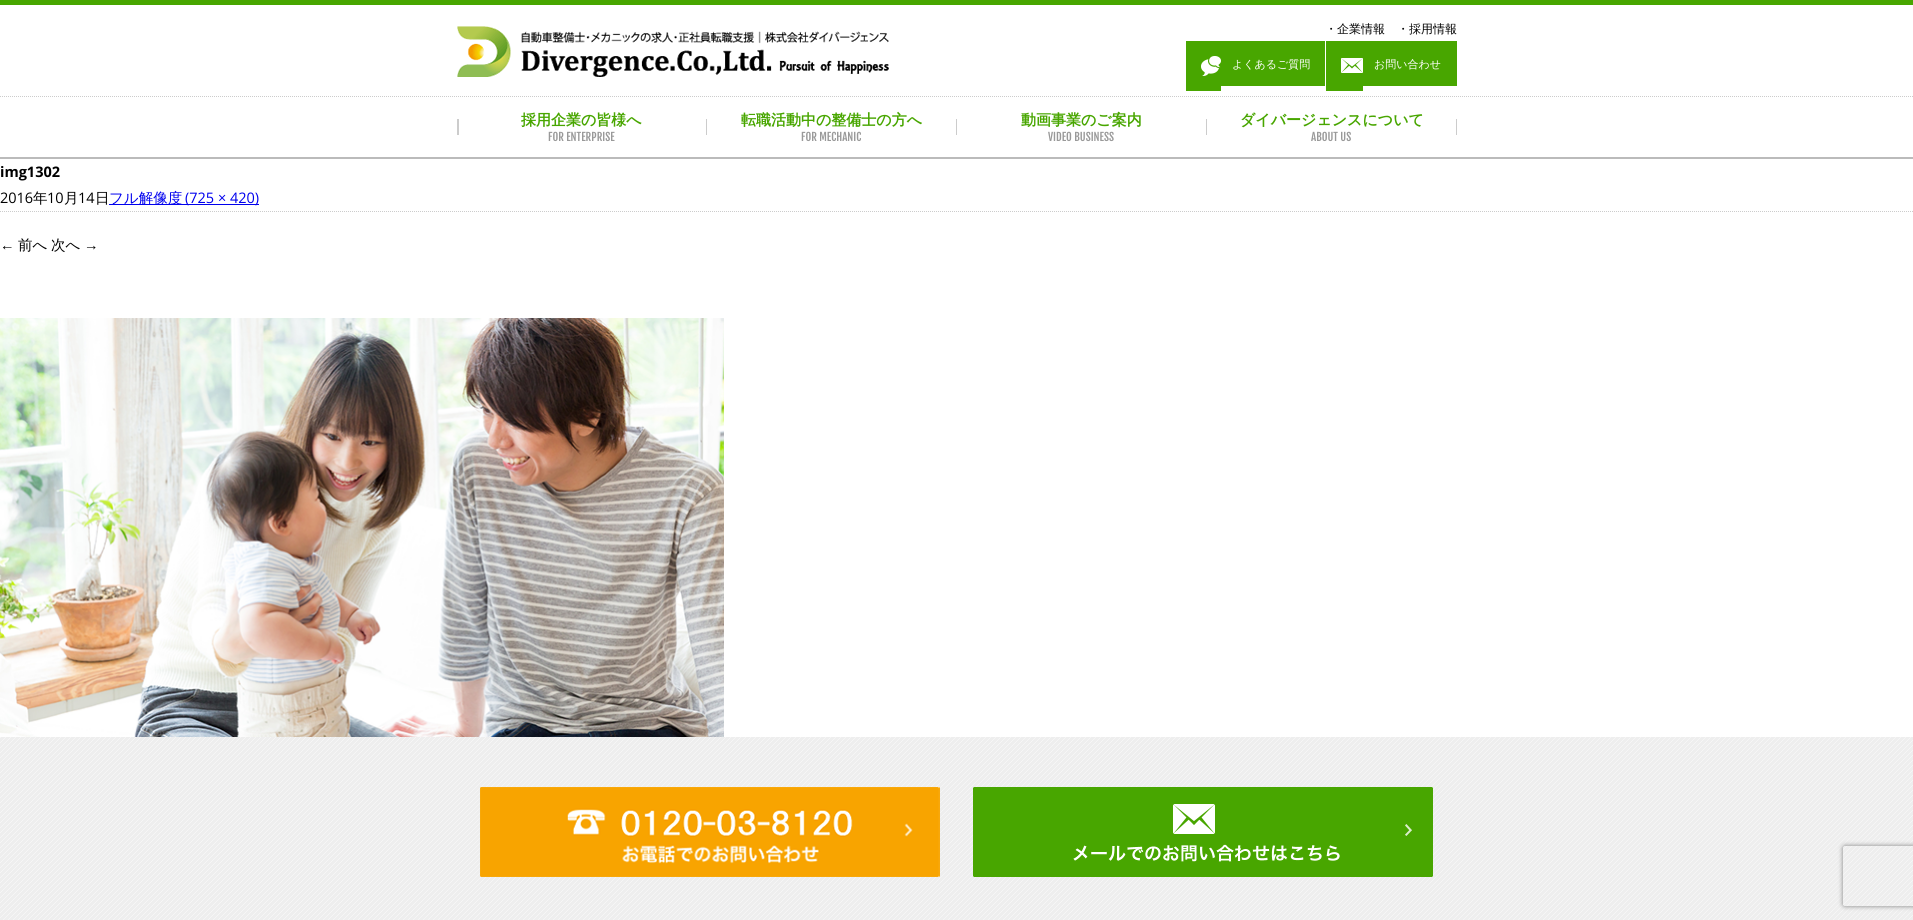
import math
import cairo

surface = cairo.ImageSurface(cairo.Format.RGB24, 1913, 920)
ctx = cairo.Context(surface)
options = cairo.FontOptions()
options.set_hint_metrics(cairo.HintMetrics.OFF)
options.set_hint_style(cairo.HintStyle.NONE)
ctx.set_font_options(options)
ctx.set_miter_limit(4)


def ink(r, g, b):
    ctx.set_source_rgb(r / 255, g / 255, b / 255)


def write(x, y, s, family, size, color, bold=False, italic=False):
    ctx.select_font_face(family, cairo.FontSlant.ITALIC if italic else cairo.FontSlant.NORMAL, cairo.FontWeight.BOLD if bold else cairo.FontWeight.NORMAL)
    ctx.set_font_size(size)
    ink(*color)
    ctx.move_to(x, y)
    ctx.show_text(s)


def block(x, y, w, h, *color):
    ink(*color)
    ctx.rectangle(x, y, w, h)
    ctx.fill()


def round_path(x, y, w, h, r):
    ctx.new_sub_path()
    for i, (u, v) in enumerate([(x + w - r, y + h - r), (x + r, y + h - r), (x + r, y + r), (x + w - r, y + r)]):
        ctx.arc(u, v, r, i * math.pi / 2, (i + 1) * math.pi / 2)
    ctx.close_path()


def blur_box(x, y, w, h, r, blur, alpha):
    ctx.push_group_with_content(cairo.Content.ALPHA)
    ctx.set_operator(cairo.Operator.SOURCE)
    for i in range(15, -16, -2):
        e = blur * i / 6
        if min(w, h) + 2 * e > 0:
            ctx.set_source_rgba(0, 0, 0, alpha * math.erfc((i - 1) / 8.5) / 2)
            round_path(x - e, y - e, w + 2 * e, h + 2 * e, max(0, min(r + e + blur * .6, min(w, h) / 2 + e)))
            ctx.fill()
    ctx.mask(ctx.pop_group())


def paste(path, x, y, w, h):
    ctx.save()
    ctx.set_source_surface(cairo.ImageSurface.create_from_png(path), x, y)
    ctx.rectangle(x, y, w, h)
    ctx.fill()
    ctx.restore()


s1 = dict(family="WenQuanYi Zen Hei Medium", size=12, color=(0, 0, 0))
s2 = dict(family="WenQuanYi Zen Hei Medium", size=11, color=(255, 255, 255))
s3 = dict(family="WenQuanYi Zen Hei", size=15, color=(72, 166, 0), bold=True)
s4 = dict(family="Fjalla One", size=11, color=(153, 153, 153))
s5 = dict(family="Open Sans", size=14.5, color=(0, 0, 0), bold=True)
s6 = dict(family="Open Sans", size=14.5, color=(0, 0, 0))
s7 = dict(family="WenQuanYi Zen Hei Medium", size=14.5, color=(0, 0, 0))
s8 = dict(family="WenQuanYi Zen Hei Medium", size=14.5, color=(0, 0, 238))
s9 = dict(family="Open Sans", size=14.5, color=(0, 0, 238))
s10 = dict(family="Liberation Sans", size=14.5, color=(0, 0, 0))

ink(255, 255, 255)
ctx.paint()
block(0, 0, 1913, 5, 72, 166, 0)
paste("pic1.png", 457, 26, 432, 51)
write(1325, 33, "・企業情報", **s1)
write(1397, 33, "・採用情報", **s1)
block(1186, 41, 35, 50, 72, 166, 0)
paste("pic2.png", 1201, 56, 20, 20)
block(1221, 41, 104, 45, 72, 166, 0)
write(1232, 68, "よくあるご質問", **s2)
block(1326, 41, 37, 50, 72, 166, 0)
paste("pic3.png", 1341, 58, 22, 15)
block(1363, 41, 94, 45, 72, 166, 0)
write(1374, 68, "お問い合わせ", **s2)
ctx.new_path()
ctx.move_to(0, 96.5)
ctx.line_to(1913, 96.5)
ink(204, 204, 204)
ctx.set_line_width(1)
ctx.set_dash([1, 1])
ctx.stroke()
block(0, 157, 1913, 2, 187, 187, 187)
block(457, 119, 2, 16, 204, 204, 204)
block(706, 119, 1, 16, 204, 204, 204)
write(521, 125, "採用企業の皆様へ", **s3)
write(548, 141, "FOR ENTERPRISE", **s4)
block(956, 119, 1, 16, 204, 204, 204)
write(741, 125, "転職活動中の整備士の方へ", **s3)
write(801, 141, "FOR MECHANIC", **s4)
block(1206, 119, 1, 16, 204, 204, 204)
write(1021, 125, "動画事業のご案内", **s3)
write(1048, 141, "VIDEO BUSINESS", **s4)
block(1456, 119, 1, 16, 204, 204, 204)
write(1240, 125, "ダイバージェンスについて", **s3)
write(1311, 141, "ABOUT US", **s4)
write(0, 177, "img1302", **s5)
write(0, 203, "2016", **s6)
write(33, 203, "年", **s7)
write(47, 203, "10", **s6)
write(64, 203, "月", **s7)
write(78, 203, "14", **s6)
write(95, 203, "日", **s7)
block(109, 204, 150, 1, 0, 0, 238)
write(109, 203, "フル解像度", **s8)
write(185, 203, "(725 × 420)", **s9)
ctx.new_path()
ctx.move_to(0, 211.5)
ctx.line_to(1913, 211.5)
ink(204, 204, 204)
ctx.stroke()
write(0, 250, "←", **s10)
write(18, 250, "前へ", **s7)
write(51, 250, "次へ", **s7)
write(84, 250, "→", **s10)
paste("pic4.png", 0, 318, 724, 419)
paste("pic5.png", 0, 737, 1913, 183)
paste("pic6.png", 480, 787, 460, 90)
paste("pic7.png", 973, 787, 460, 90)
ctx.save()
ctx.set_fill_rule(cairo.FillRule.EVEN_ODD)
ctx.new_path()
ctx.move_to(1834, 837)
ctx.line_to(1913, 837)
ctx.line_to(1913, 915)
ctx.line_to(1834, 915)
ctx.close_path()
ctx.move_to(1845, 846)
ctx.line_to(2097, 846)
ctx.curve_to(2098, 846, 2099, 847, 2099, 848)
ctx.line_to(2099, 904)
ctx.curve_to(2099, 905, 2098, 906, 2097, 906)
ctx.line_to(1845, 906)
ctx.curve_to(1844, 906, 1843, 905, 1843, 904)
ctx.line_to(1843, 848)
ctx.curve_to(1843, 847, 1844, 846, 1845, 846)
ctx.close_path()
ctx.clip()
ink(128, 128, 128)
blur_box(1843, 846, 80, 60, 2, 2.5, 1)
ctx.restore()
surface.write_to_png("screenshot.png")
